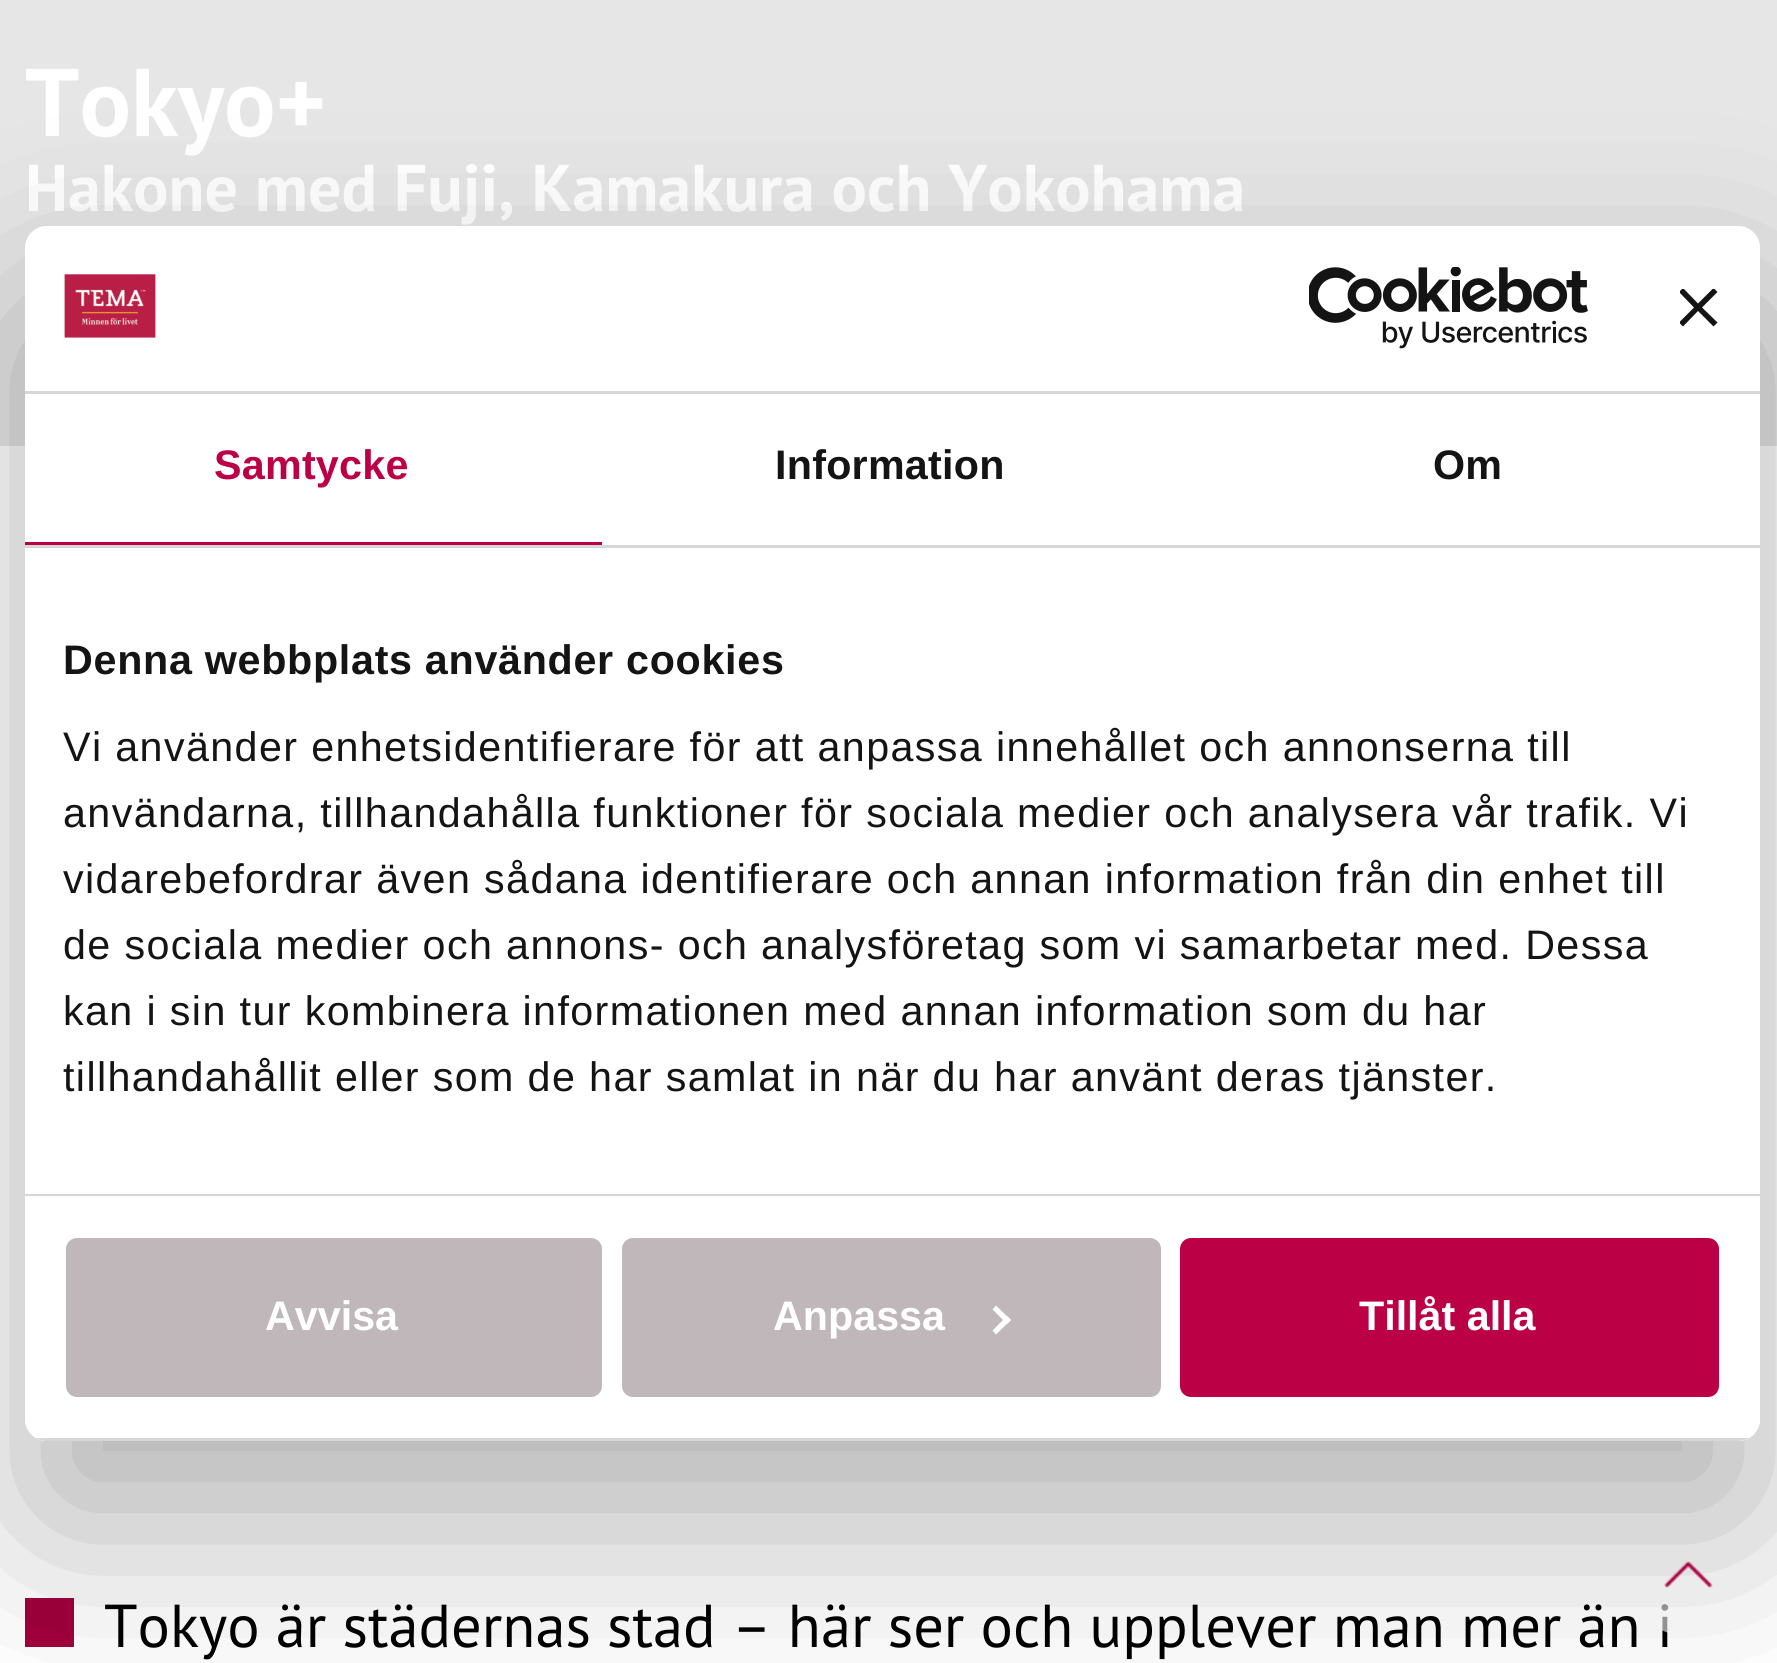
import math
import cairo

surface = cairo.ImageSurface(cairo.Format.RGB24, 1777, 1663)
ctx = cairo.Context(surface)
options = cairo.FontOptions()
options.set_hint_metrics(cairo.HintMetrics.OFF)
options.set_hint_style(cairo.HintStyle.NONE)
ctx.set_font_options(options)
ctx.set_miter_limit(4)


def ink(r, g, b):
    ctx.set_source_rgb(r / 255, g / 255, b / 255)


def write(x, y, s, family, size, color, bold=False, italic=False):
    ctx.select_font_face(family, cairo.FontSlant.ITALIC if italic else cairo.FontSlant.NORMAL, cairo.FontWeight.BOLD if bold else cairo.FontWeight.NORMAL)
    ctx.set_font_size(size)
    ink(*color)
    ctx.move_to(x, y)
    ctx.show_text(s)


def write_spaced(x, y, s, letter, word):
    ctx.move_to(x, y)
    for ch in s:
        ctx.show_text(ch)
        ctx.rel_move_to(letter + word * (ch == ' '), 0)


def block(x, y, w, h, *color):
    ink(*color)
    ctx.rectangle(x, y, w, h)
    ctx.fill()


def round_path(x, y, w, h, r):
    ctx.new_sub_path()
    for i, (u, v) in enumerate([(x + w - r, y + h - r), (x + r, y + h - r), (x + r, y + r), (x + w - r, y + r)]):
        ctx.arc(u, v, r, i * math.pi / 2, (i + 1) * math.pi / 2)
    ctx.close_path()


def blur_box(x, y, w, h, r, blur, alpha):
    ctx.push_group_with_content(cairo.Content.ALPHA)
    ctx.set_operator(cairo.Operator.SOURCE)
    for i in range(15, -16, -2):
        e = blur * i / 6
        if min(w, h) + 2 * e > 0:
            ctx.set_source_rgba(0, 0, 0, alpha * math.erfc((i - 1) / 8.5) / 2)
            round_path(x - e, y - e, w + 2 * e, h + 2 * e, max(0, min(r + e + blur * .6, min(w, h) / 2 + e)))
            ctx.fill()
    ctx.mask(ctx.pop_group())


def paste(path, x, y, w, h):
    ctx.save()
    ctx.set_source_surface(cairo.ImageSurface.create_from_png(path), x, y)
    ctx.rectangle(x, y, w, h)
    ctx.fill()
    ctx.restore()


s1 = dict(family="PT Sans", size=96, color=(255, 255, 255), bold=True)
s2 = dict(family="PT Sans", size=66, color=(255, 255, 255), bold=True)
s3 = dict(family="PT Sans", size=60.5, color=(0, 0, 0))
s4 = dict(family="Liberation Sans", size=41.25, color=(255, 255, 255), bold=True)

ink(255, 255, 255)
ctx.paint()
block(0, 0, 1777, 446, 230, 230, 230)
write(25, 136, "Tokyo+", **s1)
write(25, 211, "Hakone med Fuji, Kamakura och Yokohama", **s2)
block(25, 1598, 49, 49, 161, 0, 60)
write(104, 1647, "Tokyo är städernas stad – här ser och upplever man mer än i", **s3)
ctx.set_source_rgba(1, 1, 1, 0.6)
round_path(1625, 1510, 127, 126, 63)
ctx.fill()
paste("pic3.png", 1664, 1561, 49, 27)
ctx.save()
ctx.set_fill_rule(cairo.FillRule.EVEN_ODD)
ctx.new_path()
ctx.move_to(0, 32)
ctx.line_to(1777, 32)
ctx.line_to(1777, 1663)
ctx.line_to(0, 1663)
ctx.close_path()
ctx.move_to(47, 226)
ctx.line_to(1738, 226)
ctx.curve_to(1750, 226, 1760, 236, 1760, 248)
ctx.line_to(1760, 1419)
ctx.curve_to(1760, 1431, 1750, 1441, 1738, 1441)
ctx.line_to(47, 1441)
ctx.curve_to(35, 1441, 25, 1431, 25, 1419)
ctx.line_to(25, 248)
ctx.curve_to(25, 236, 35, 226, 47, 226)
ctx.close_path()
ctx.clip()
ink(0, 0, 0)
blur_box(25, 314, 1735, 1215, 22, 93.5, 0.3)
ctx.restore()
ink(255, 255, 255)
round_path(25, 226, 1735, 1215, 22)
ctx.fill()
block(25, 391, 1735, 3, 214, 214, 214)
paste("pic1.png", 64, 274, 92, 64)
paste("pic2.png", 1309, 267, 279, 82)
ctx.save()
ctx.rectangle(1680, 289, 39, 38)
ctx.clip()
ink(20, 20, 20)
ctx.new_path()
ctx.move_to(1717.5, 292)
ctx.line_to(1713.5, 288)
ctx.line_to(1698, 303.5)
ctx.line_to(1683, 288)
ctx.line_to(1679, 292)
ctx.line_to(1694, 307.5)
ctx.line_to(1679, 322.5)
ctx.line_to(1683, 326.5)
ctx.line_to(1698, 311)
ctx.line_to(1713.5, 326.5)
ctx.line_to(1717.5, 322.5)
ctx.line_to(1702, 307.5)
ctx.close_path()
ctx.fill()
ctx.restore()
block(25, 545, 1735, 3, 214, 214, 214)
block(25, 542, 577, 3, 187, 0, 70)
ctx.select_font_face("Liberation Sans", cairo.FontSlant.NORMAL, cairo.FontWeight.BOLD)
ctx.set_font_size(41.25)
write_spaced(214, 479, "Samtycke", 0.25, 0)
ink(20, 20, 20)
write_spaced(775, 479, "Information", 0.25, 0)
write_spaced(1433, 479, "Om", 0.25, 0)
block(25, 1194, 1735, 2, 214, 214, 214)
ink(20, 20, 20)
write_spaced(63, 674, "Denna webbplats använder cookies", 0.7, 0)
ctx.select_font_face("Liberation Sans")
write_spaced(63, 761, "Vi använder enhetsidentifierare för att anpassa innehållet och annonserna till", 1.38, 0)
write_spaced(63, 827, "användarna, tillhandahålla funktioner för sociala medier och analysera vår trafik. Vi", 1.38, 0)
write_spaced(63, 893, "vidarebefordrar även sådana identifierare och annan information från din enhet till", 1.38, 0)
write_spaced(63, 959, "de sociala medier och annons- och analysföretag som vi samarbetar med. Dessa", 1.38, 0)
write_spaced(63, 1025, "kan i sin tur kombinera informationen med annan information som du har", 1.38, 0)
write_spaced(63, 1091, "tillhandahållit eller som de har samlat in när du har använt deras tjänster.", 1.38, 0)
ctx.save()
round_path(25, 226, 1735, 1215, 22)
ctx.clip()
block(36, 1438, 1713, 3, 214, 214, 214)
ctx.restore()
ink(192, 183, 187)
round_path(69, 1241, 530, 153, 8)
ctx.fill_preserve()
ctx.set_line_width(6)
ctx.stroke()
write(265, 1330, "Avvisa", **s4)
ink(192, 183, 187)
round_path(625, 1241, 533, 153, 8)
ctx.fill_preserve()
ctx.stroke()
write(773, 1330, "Anpassa", **s4)
ctx.new_path()
ctx.move_to(996, 1305.5)
ctx.line_to(1011, 1320)
ctx.line_to(1007, 1324)
ctx.line_to(992.5, 1309.5)
ctx.close_path()
ctx.fill()
ctx.new_path()
ctx.move_to(1007, 1316)
ctx.line_to(1011, 1320)
ctx.line_to(996, 1334.5)
ctx.line_to(992.5, 1330.5)
ctx.close_path()
ctx.fill()
ink(187, 0, 70)
round_path(1183, 1241, 533, 153, 8)
ctx.fill_preserve()
ctx.stroke()
write(1359, 1330, "Tillåt alla", **s4)
surface.write_to_png("screenshot.png")
